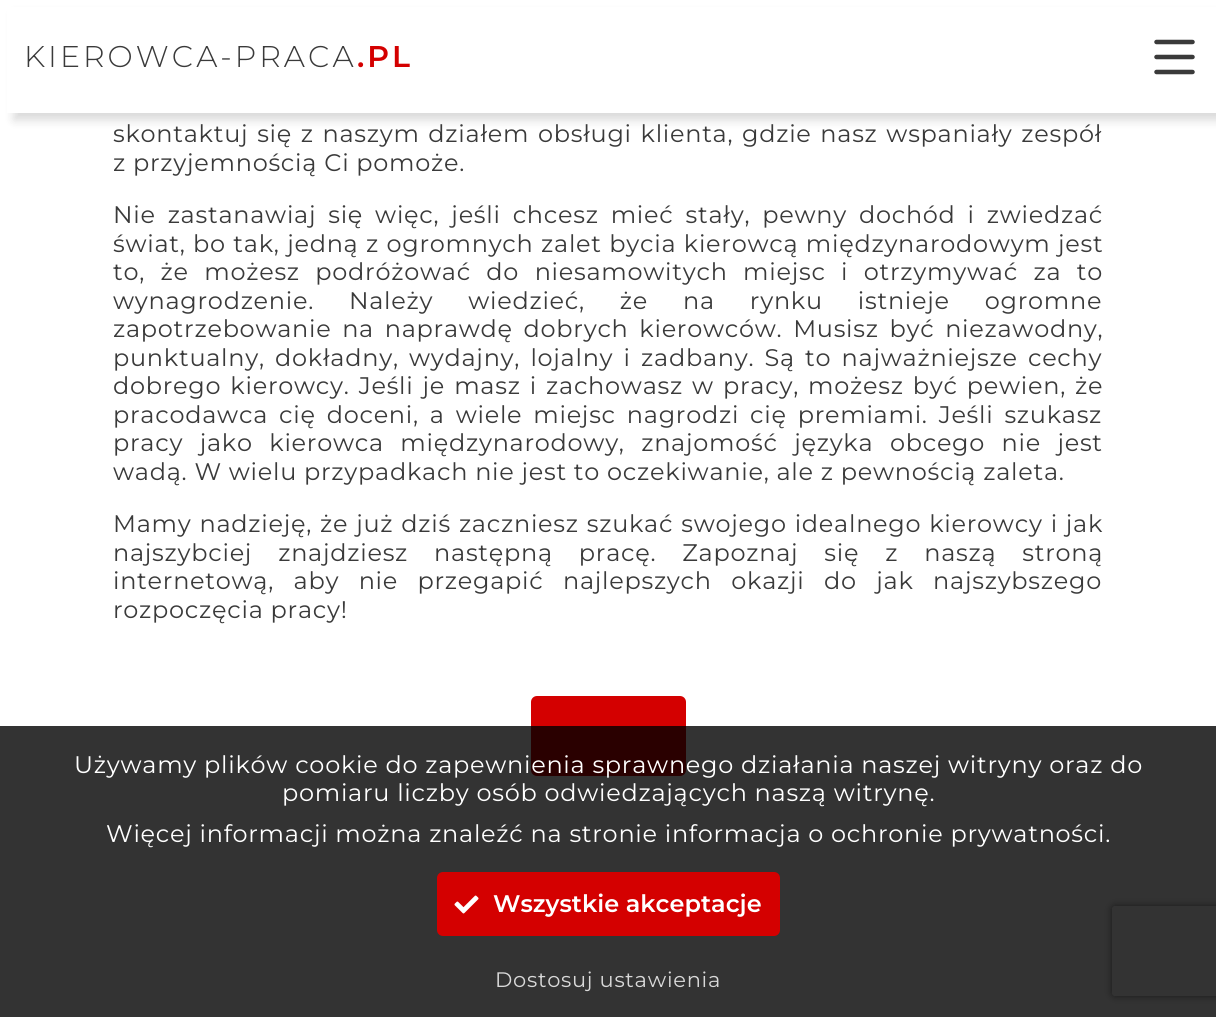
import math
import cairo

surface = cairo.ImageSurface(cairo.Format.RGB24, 1216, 1017)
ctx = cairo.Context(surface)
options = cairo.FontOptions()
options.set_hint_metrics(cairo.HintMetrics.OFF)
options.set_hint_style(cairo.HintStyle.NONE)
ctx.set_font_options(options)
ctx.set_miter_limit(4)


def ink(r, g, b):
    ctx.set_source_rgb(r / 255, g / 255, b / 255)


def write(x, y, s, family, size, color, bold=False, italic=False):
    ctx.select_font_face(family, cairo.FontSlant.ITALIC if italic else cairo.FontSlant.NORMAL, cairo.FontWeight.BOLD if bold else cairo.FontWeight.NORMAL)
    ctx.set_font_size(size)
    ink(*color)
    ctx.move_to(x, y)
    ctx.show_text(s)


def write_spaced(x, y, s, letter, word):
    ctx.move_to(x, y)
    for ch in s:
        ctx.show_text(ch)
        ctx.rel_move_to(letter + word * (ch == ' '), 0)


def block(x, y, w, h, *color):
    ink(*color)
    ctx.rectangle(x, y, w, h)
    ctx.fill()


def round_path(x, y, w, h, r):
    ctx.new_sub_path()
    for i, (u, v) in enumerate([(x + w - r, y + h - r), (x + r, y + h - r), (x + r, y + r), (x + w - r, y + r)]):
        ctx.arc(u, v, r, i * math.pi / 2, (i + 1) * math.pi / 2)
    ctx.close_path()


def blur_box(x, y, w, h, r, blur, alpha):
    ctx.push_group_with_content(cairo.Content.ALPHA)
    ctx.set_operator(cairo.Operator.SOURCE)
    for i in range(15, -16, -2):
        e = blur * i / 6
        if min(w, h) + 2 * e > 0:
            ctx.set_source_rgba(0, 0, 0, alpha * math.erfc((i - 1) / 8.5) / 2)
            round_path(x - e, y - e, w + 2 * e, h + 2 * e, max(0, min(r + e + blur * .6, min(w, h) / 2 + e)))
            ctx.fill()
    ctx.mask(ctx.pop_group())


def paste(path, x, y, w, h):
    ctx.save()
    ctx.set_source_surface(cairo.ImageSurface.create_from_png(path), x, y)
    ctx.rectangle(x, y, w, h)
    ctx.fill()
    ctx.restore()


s1 = dict(family="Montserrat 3 Thin", size=24, color=(255, 255, 255))

ink(255, 255, 255)
ctx.paint()
ink(0, 0, 0)
blur_box(14, 14, 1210, 106, 0, 5, 0.15)
block(7, 7, 1209, 106, 255, 255, 255)
ctx.select_font_face("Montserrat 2 Thin")
ctx.set_font_size(30)
ink(58, 58, 58)
write_spaced(24, 67, "KIEROWCA-PRACA", 3, 0)
ctx.select_font_face("Montserrat 3 Thin")
ink(212, 0, 0)
write_spaced(357, 67, ".PL", 3, 0)
ctx.new_path()
ctx.move_to(1156.5, 42)
ctx.line_to(1192.5, 42)
ctx.move_to(1156.5, 57)
ctx.line_to(1192.5, 57)
ctx.move_to(1156.5, 72)
ctx.line_to(1192.5, 72)
ink(58, 58, 58)
ctx.set_line_width(4.5)
ctx.set_line_cap(cairo.LineCap.ROUND)
ctx.stroke()
ctx.select_font_face("Montserrat Thin")
ctx.set_font_size(24)
write_spaced(113, 142, "skontaktuj się z naszym działem obsługi klienta, gdzie nasz wspaniały zespół", 0.72, 1.75)
write_spaced(113, 171, "z przyjemnością Ci pomoże.", 0.72, 0)
write_spaced(113, 223, "Nie zastanawiaj się więc, jeśli chcesz mieć stały, pewny dochód i zwiedzać", 0.72, 5)
write_spaced(113, 252, "świat, bo tak, jedną z ogromnych zalet bycia kierowcą międzynarodowym jest", 0.72, 0.5)
write_spaced(113, 280, "to, że możesz podróżować do niesamowitych miejsc i otrzymywać za to", 0.72, 8.5)
write_spaced(113, 309, "wynagrodzenie. Należy wiedzieć, że na rynku istnieje ogromne", 0.72, 28)
write_spaced(113, 337, "zapotrzebowanie na naprawdę dobrych kierowców. Musisz być niezawodny,", 0.72, 3.75)
write_spaced(113, 366, "punktualny, dokładny, wydajny, lojalny i zadbany. Są to najważniejsze cechy", 0.72, 3.25)
write_spaced(113, 394, "dobrego kierowcy. Jeśli je masz i zachowasz w pracy, możesz być pewien, że", 0.72, 2.1)
write_spaced(113, 423, "pracodawca cię doceni, a wiele miejsc nagrodzi cię premiami. Jeśli szukasz", 0.72, 4)
write_spaced(113, 451, "pracy jako kierowca międzynarodowy, znajomość języka obcego nie jest", 0.72, 9.5)
write_spaced(113, 480, "wadą. W wielu przypadkach nie jest to oczekiwanie, ale z pewnością zaleta.", 0.72, 0)
write_spaced(113, 532, "Mamy nadzieję, że już dziś zaczniesz szukać swojego idealnego kierowcy i jak", 0.72, 1)
write_spaced(113, 561, "najszybciej znajdziesz następną pracę. Zapoznaj się z naszą stroną", 0.72, 19)
write_spaced(113, 589, "internetową, aby nie przegapić najlepszych okazji do jak najszybszego", 0.72, 12.5)
write_spaced(113, 618, "rozpoczęcia pracy!", 0.72, 0)
ink(212, 0, 0)
round_path(532.5, 697.5, 152, 77, 4.5)
ctx.fill_preserve()
ctx.set_line_width(3)
ctx.set_line_cap(cairo.LineCap.BUTT)
ctx.stroke()
ctx.save()
ctx.set_fill_rule(cairo.FillRule.EVEN_ODD)
ctx.new_path()
ctx.move_to(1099, 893)
ctx.line_to(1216, 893)
ctx.line_to(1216, 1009)
ctx.line_to(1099, 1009)
ctx.close_path()
ctx.move_to(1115, 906)
ctx.line_to(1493, 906)
ctx.curve_to(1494.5, 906, 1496, 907.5, 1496, 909)
ctx.line_to(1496, 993)
ctx.curve_to(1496, 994.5, 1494.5, 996, 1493, 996)
ctx.line_to(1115, 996)
ctx.curve_to(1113.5, 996, 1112, 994.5, 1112, 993)
ctx.line_to(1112, 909)
ctx.curve_to(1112, 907.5, 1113.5, 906, 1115, 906)
ctx.close_path()
ctx.clip()
ink(128, 128, 128)
blur_box(1112, 906, 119, 90, 3, 4, 1)
ctx.restore()
ctx.set_source_rgba(0, 0, 0, 0.8)
ctx.rectangle(0, 726, 1216, 291)
ctx.fill()
ink(255, 255, 255)
write_spaced(74, 773, "Używamy plików cookie do zapewnienia sprawnego działania naszej witryny oraz do", 0.72, 0)
write_spaced(282, 801, "pomiaru liczby osób odwiedzających naszą witrynę.", 0.72, 0)
write_spaced(106, 842, "Więcej informacji można znaleźć na stronie informacja o ochronie prywatności.", 0.72, 0)
ink(212, 0, 0)
round_path(438.5, 873.5, 340, 61, 4.5)
ctx.fill_preserve()
ctx.stroke()
paste("pic1.png", 454, 895, 25, 19)
write(493, 912, "Wszystkie akceptacje", **s1)
ctx.select_font_face("Montserrat Thin")
ctx.set_font_size(21)
ink(217, 217, 217)
write_spaced(495, 987, "Dostosuj ustawienia", 0.72, 0)
surface.write_to_png("screenshot.png")
